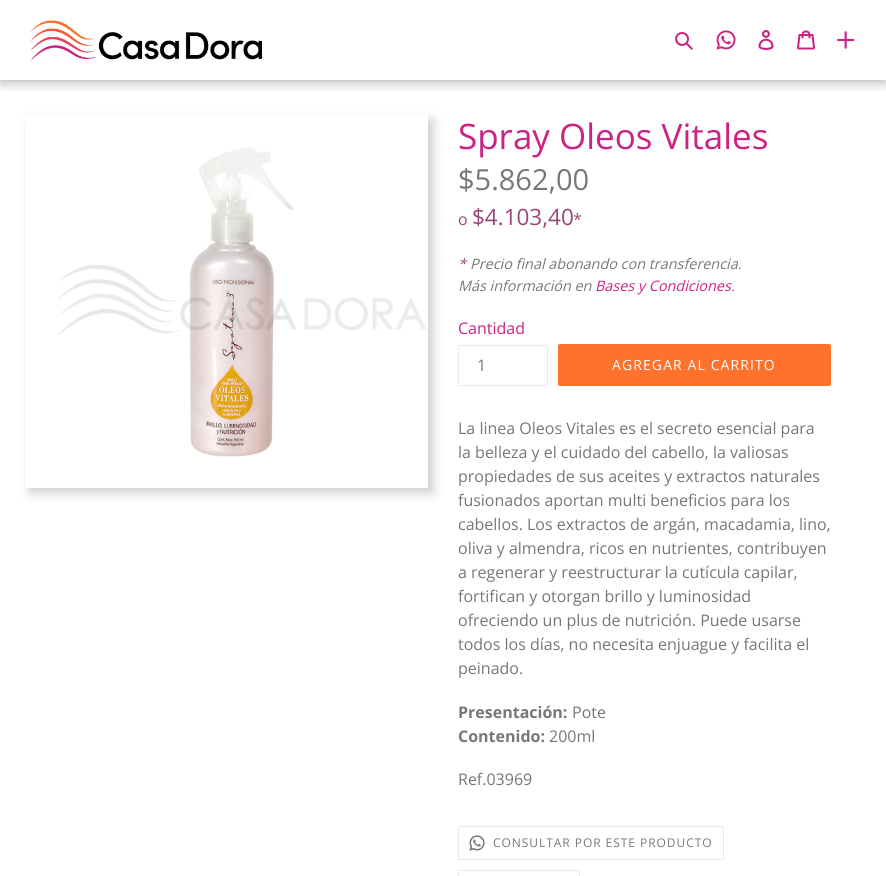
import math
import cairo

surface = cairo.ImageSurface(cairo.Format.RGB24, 886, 876)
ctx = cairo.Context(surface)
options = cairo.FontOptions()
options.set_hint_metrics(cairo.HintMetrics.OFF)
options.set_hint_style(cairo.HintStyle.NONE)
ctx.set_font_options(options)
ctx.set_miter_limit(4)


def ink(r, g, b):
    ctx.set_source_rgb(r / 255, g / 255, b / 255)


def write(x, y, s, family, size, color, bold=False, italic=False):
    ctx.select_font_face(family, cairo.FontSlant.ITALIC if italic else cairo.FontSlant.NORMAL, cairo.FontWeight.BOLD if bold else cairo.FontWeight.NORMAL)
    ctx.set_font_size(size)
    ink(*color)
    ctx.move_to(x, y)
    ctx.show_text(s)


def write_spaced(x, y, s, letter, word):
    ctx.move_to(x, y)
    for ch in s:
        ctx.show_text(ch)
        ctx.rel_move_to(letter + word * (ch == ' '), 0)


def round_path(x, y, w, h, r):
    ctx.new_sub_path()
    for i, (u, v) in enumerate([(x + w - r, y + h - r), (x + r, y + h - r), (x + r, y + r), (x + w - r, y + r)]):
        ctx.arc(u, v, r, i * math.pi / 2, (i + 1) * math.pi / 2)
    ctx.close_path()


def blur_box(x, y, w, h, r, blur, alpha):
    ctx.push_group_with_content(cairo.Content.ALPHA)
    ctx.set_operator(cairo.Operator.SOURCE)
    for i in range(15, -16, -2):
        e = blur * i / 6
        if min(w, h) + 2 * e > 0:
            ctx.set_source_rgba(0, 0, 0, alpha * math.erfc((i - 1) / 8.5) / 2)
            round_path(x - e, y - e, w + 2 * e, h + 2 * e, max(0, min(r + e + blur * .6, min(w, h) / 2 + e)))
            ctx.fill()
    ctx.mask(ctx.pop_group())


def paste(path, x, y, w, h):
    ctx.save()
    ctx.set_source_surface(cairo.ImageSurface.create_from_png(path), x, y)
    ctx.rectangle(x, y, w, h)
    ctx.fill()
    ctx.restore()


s1 = dict(family="Open Sans", size=35, color=(204, 34, 130))
s2 = dict(family="Open Sans", size=29, color=(119, 119, 119))
s3 = dict(family="Open Sans", size=16, color=(153, 70, 119))
s4 = dict(family="Open Sans", size=22.5, color=(153, 70, 119))
s5 = dict(family="Open Sans", size=14.4, color=(153, 70, 119), italic=True)
s6 = dict(family="Open Sans", size=14.4, color=(119, 119, 119), italic=True)
s7 = dict(family="Open Sans", size=14.4, color=(204, 34, 130), italic=True)
s8 = dict(family="Open Sans", size=16, color=(204, 34, 130))
s9 = dict(family="Open Sans", size=16, color=(119, 119, 119))
s10 = dict(family="Open Sans", size=16, color=(119, 119, 119), bold=True)

ink(255, 255, 255)
ctx.paint()
ctx.save()
ctx.rectangle(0, 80, 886, 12)
ctx.clip()
ink(0, 0, 0)
blur_box(0, 0, 886, 80, 0, 7.5, 0.4)
ctx.restore()
paste("pic1.png", 30, 20, 232, 40)
paste("pic2.png", 675, 32, 18, 18)
paste("pic3.png", 716, 30, 20, 20)
paste("pic4.png", 758, 30, 16, 20)
paste("pic5.png", 797, 30, 18, 20)
paste("pic6.png", 837, 31, 18, 18)
ctx.save()
ctx.set_fill_rule(cairo.FillRule.EVEN_ODD)
ctx.new_path()
ctx.move_to(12, 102)
ctx.line_to(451, 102)
ctx.line_to(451, 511)
ctx.line_to(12, 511)
ctx.close_path()
ctx.move_to(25, 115)
ctx.line_to(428, 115)
ctx.line_to(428, 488)
ctx.line_to(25, 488)
ctx.close_path()
ctx.clip()
ink(0, 0, 0)
blur_box(30, 120, 403, 373, 0, 5.5, 0.2)
ctx.restore()
paste("pic7.png", 189, 147, 105, 310)
paste("pic8.png", 58, 265, 368, 70)
write(458, 149, "Spray Oleos Vitales", **s1)
write(458, 190, "$5.862,00", **s2)
write(458, 225, "o", **s3)
write(472, 225, "$4.103,40", **s4)
write(573, 225, "*", **s3)
write(458, 269, "*", **s5)
write(470, 269, "Precio final abonando con transferencia.", **s6)
write(458, 291, "Más información en", **s6)
write(595, 291, "Bases y Condiciones", **s7)
write(731, 291, ".", **s6)
write(458, 334, "Cantidad", **s8)
round_path(458.5, 345.5, 89, 40, 1.5)
ink(232, 233, 235)
ctx.set_line_width(1)
ctx.stroke()
write(477, 371, "1", **s9)
ink(255, 114, 43)
round_path(558, 344, 273, 42, 2)
ctx.fill()
ctx.set_font_size(14)
ink(255, 255, 255)
write_spaced(612, 370, "AGREGAR AL CARRITO", 1.1, 0)
write(458, 434, "La linea Oleos Vitales es el secreto esencial para", **s9)
write(458, 458, "la belleza y el cuidado del cabello, la valiosas", **s9)
write(458, 482, "propiedades de sus aceites y extractos naturales", **s9)
write(458, 506, "fusionados aportan multi beneficios para los", **s9)
write(458, 530, "cabellos. Los extractos de argán, macadamia, lino,", **s9)
write(458, 554, "oliva y almendra, ricos en nutrientes, contribuyen", **s9)
write(458, 578, "a regenerar y reestructurar la cutícula capilar,", **s9)
write(458, 602, "fortifican y otorgan brillo y luminosidad", **s9)
write(458, 626, "ofreciendo un plus de nutrición. Puede usarse", **s9)
write(458, 650, "todos los días, no necesita enjuague y facilita el", **s9)
write(458, 674, "peinado.", **s9)
write(458, 718, "Presentación:", **s10)
write(572, 718, "Pote", **s9)
write(458, 742, "Contenido:", **s10)
write(549, 742, "200ml", **s9)
write(458, 785, "Ref.03969", **s9)
round_path(458.5, 826.5, 265, 33, 1.5)
ink(232, 233, 235)
ctx.stroke()
paste("pic9.png", 469, 835, 16, 16)
ctx.set_font_size(12)
ink(119, 119, 119)
write_spaced(493, 847, "CONSULTAR POR ESTE PRODUCTO", 0.95, 0)
round_path(458.5, 870.5, 121, 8, 1.5)
ink(232, 233, 235)
ctx.stroke()
surface.write_to_png("screenshot.png")
